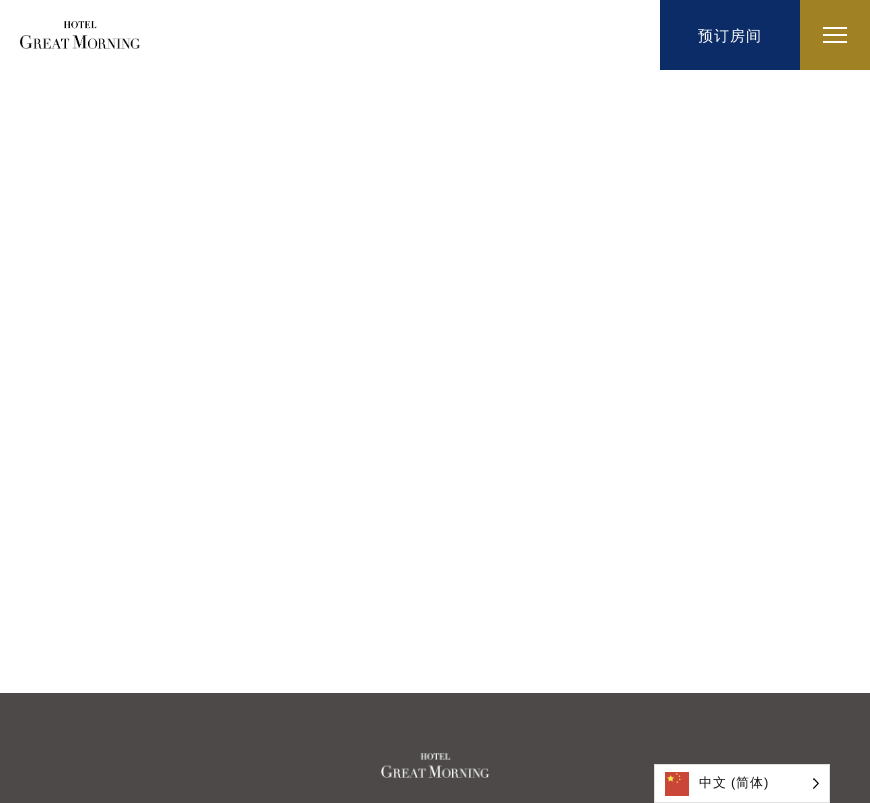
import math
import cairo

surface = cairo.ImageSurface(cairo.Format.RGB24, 870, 803)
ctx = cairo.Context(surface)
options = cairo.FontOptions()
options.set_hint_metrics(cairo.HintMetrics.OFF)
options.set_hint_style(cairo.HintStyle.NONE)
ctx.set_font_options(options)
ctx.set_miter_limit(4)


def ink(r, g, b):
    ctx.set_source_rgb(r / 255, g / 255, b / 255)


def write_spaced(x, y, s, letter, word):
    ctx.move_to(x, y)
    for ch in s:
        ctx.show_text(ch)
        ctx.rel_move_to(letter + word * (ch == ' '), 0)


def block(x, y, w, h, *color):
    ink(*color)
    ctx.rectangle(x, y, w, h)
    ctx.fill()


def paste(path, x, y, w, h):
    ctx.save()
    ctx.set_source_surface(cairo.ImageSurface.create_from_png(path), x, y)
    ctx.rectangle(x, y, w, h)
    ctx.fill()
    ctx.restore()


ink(255, 255, 255)
ctx.paint()
paste("pic1.png", 20, 21, 120, 28)
block(660, 0, 140, 70, 11, 44, 103)
ctx.select_font_face("WenQuanYi Zen Hei Medium")
ctx.set_font_size(15)
ink(255, 255, 255)
write_spaced(698, 41, "预订房间", 1, 0)
block(800, 0, 70, 70, 160, 130, 36)
block(823, 27, 24, 2, 255, 255, 255)
block(823, 34, 24, 2, 255, 255, 255)
block(823, 41, 24, 2, 255, 255, 255)
block(0, 693, 870, 110, 76, 73, 72)
paste("pic2.png", 381, 753, 108, 25)
ink(255, 255, 255)
ctx.rectangle(654.5, 764.5, 175, 38)
ctx.fill_preserve()
ink(224, 224, 224)
ctx.set_line_width(1)
ctx.stroke()
paste("pic3.png", 665, 772, 24, 24)
ctx.set_font_size(13)
ink(17, 17, 17)
write_spaced(699, 787, "中文", 1, 0)
ctx.select_font_face("Liberation Sans")
write_spaced(731, 787, "(", 1, 0)
ctx.select_font_face("WenQuanYi Zen Hei Medium")
write_spaced(736, 787, "简体", 1, 0)
ctx.select_font_face("Liberation Sans")
write_spaced(764, 787, ")", 1, 0)
paste("pic4.png", 813, 778, 6, 11)
surface.write_to_png("screenshot.png")
